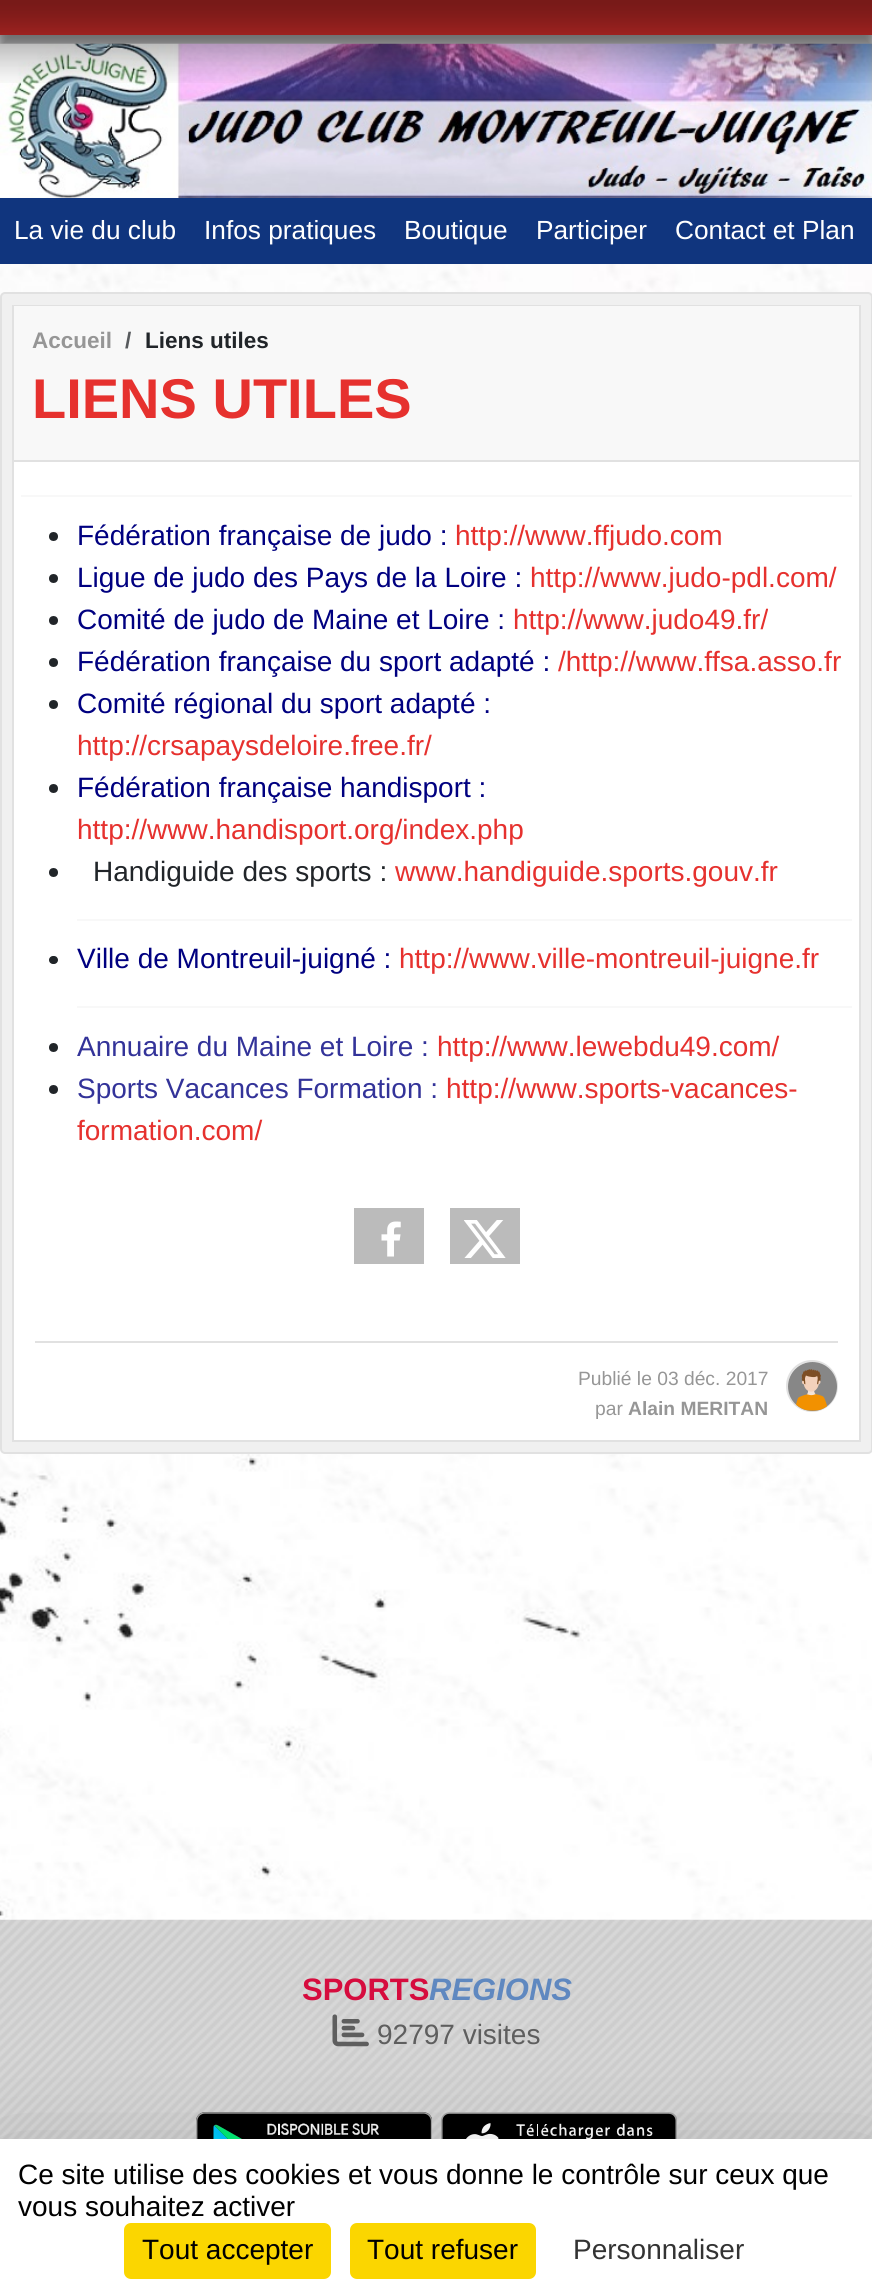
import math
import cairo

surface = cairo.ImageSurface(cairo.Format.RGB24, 872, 2295)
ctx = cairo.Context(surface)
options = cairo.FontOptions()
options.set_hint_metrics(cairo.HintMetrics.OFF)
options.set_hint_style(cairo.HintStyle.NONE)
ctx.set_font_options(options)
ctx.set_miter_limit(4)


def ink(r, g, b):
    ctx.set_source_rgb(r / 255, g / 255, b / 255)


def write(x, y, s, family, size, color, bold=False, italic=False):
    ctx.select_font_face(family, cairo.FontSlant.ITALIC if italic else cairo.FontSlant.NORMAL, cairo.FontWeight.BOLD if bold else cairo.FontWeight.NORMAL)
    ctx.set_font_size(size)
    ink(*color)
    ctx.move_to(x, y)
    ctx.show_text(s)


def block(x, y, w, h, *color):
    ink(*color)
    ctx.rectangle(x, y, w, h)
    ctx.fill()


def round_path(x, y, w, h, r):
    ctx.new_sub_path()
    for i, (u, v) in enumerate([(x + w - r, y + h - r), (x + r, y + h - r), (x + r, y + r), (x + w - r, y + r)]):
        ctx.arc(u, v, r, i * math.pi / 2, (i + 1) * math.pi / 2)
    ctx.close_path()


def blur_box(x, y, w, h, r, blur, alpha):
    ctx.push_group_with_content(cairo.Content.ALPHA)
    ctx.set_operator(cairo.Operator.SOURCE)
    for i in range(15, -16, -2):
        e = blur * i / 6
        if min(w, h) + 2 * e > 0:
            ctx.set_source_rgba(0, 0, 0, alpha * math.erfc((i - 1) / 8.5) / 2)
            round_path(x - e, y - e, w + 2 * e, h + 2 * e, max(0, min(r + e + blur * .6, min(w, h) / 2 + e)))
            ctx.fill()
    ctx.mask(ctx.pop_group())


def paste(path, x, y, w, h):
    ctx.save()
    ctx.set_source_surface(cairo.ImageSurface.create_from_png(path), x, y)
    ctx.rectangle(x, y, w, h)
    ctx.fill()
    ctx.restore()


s1 = dict(family="Liberation Sans", size=26.25, color=(255, 255, 255))
s2 = dict(family="Liberation Sans", size=22.5, color=(150, 150, 150), bold=True)
s3 = dict(family="Liberation Sans", size=22.5, color=(87, 90, 93), bold=True)
s4 = dict(family="Liberation Sans", size=22.5, color=(33, 37, 41), bold=True)
s5 = dict(family="Liberation Sans", size=56, color=(230, 49, 46), bold=True)
s6 = dict(family="Liberation Sans", size=28, color=(0, 0, 128))
s7 = dict(family="Liberation Sans", size=28, color=(230, 49, 46))
s8 = dict(family="Liberation Sans", size=28, color=(33, 37, 41))
s9 = dict(family="Liberation Sans", size=28, color=(51, 51, 153))
s10 = dict(family="Liberation Sans", size=19.25, color=(150, 150, 150))
s11 = dict(family="Liberation Sans", size=19.25, color=(150, 150, 150), bold=True)
s12 = dict(family="Liberation Sans", size=31, color=(214, 12, 62), bold=True)
s13 = dict(family="Liberation Sans", size=31, color=(95, 136, 192), bold=True, italic=True)
s14 = dict(family="Liberation Sans", size=28, color=(94, 94, 94))
s15 = dict(family="Liberation Sans", size=28, color=(0, 0, 0))
s16 = dict(family="Liberation Sans", size=28, color=(51, 51, 51))

ink(249, 249, 252)
ctx.paint()
paste("pic1.png", 0, 197, 872, 1723)
ink(80, 80, 80)
blur_box(0, 12, 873, 35, 0, 4.5, 0.5)
block(0, 0, 872, 35, 230, 49, 46)
paste("pic3.png", 0, 43, 872, 155)
paste("pic2.png", 0, 0, 872, 83)
block(0, 198, 872, 66, 16, 53, 126)
write(14, 239, "La vie du club", **s1)
write(204, 239, "Infos pratiques", **s1)
write(404, 239, "Boutique", **s1)
write(536, 239, "Participer", **s1)
write(675, 239, "Contact et Plan", **s1)
ink(240, 240, 240)
round_path(1, 293, 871, 1160, 4)
ctx.fill_preserve()
ink(225, 225, 225)
ctx.stroke()
block(14, 462, 845, 978, 255, 255, 255)
ctx.rectangle(13, 306, 847, 1135)
ink(225, 225, 225)
ctx.stroke()
block(14, 306, 845, 154, 248, 248, 248)
block(14, 460, 845, 2, 225, 225, 225)
write(32, 348, "Accueil", **s2)
write(125, 348, "/", **s3)
write(145, 348, "Liens utiles", **s4)
write(32, 418, "LIENS UTILES", **s5)
block(21, 495, 831, 2, 248, 248, 248)
ink(33, 37, 41)
ctx.new_path()
ctx.arc(53.5, 536.5, 4.5, 0, 2 * math.pi)
ctx.fill()
write(77, 545, "Fédération française de judo :", **s6)
write(455, 545, "http://www.ffjudo.com", **s7)
ink(33, 37, 41)
ctx.new_path()
ctx.arc(53.5, 578.5, 4.5, 0, 2 * math.pi)
ctx.fill()
write(77, 587, "Ligue de judo des Pays de la Loire :", **s6)
write(530, 587, "http://www.judo-pdl.com/", **s7)
ink(33, 37, 41)
ctx.new_path()
ctx.arc(53.5, 620.5, 4.5, 0, 2 * math.pi)
ctx.fill()
write(77, 629, "Comité de judo de Maine et Loire :", **s6)
write(513, 629, "http://www.judo49.fr/", **s7)
ink(33, 37, 41)
ctx.new_path()
ctx.arc(53.5, 662.5, 4.5, 0, 2 * math.pi)
ctx.fill()
write(77, 671, "Fédération française du sport adapté :", **s6)
write(558, 671, "/http://www.ffsa.asso.fr", **s7)
ink(33, 37, 41)
ctx.new_path()
ctx.arc(53.5, 704.5, 4.5, 0, 2 * math.pi)
ctx.fill()
write(77, 713, "Comité régional du sport adapté :", **s6)
write(77, 755, "http://crsapaysdeloire.free.fr/", **s7)
ink(33, 37, 41)
ctx.new_path()
ctx.arc(53.5, 788.5, 4.5, 0, 2 * math.pi)
ctx.fill()
write(77, 797, "Fédération française handisport :", **s6)
write(77, 839, "http://www.handisport.org/index.php", **s7)
ink(33, 37, 41)
ctx.new_path()
ctx.arc(53.5, 872.5, 4.5, 0, 2 * math.pi)
ctx.fill()
write(93, 881, "Handiguide des sports :", **s8)
write(395, 881, "www.handiguide.sports.gouv.fr", **s7)
block(77, 919, 775, 2, 248, 248, 248)
ink(33, 37, 41)
round_path(49, 956, 9, 8, 4)
ctx.fill()
write(77, 968, "Ville de Montreuil-juigné :", **s6)
write(399, 968, "http://www.ville-montreuil-juigne.fr", **s7)
block(77, 1006, 775, 2, 248, 248, 248)
ink(33, 37, 41)
ctx.new_path()
ctx.arc(53.5, 1047.5, 4.5, 0, 2 * math.pi)
ctx.fill()
write(77, 1056, "Annuaire du Maine et Loire :", **s9)
write(437, 1056, "http://www.lewebdu49.com/", **s7)
ink(33, 37, 41)
ctx.new_path()
ctx.arc(53.5, 1089.5, 4.5, 0, 2 * math.pi)
ctx.fill()
write(77, 1098, "Sports Vacances Formation :", **s9)
write(446, 1098, "http://www.sports-vacances-", **s7)
write(77, 1140, "formation.com/", **s7)
block(354, 1208, 70, 56, 187, 187, 187)
paste("pic4.png", 381, 1221, 20, 36)
block(450, 1208, 70, 56, 187, 187, 187)
paste("pic5.png", 464, 1220, 42, 38)
block(35, 1341, 803, 2, 225, 225, 225)
ctx.arc(812, 1386, 25, 0, 2 * math.pi)
ctx.stroke()
write(578, 1385, "Publié le 03 déc. 2017", **s10)
write(595, 1415, "par", **s10)
write(628, 1415, "Alain MERITAN", **s11)
paste("pic6.png", 788, 1362, 49, 49)
paste("pic7.png", 0, 1919, 872, 220)
write(302, 2000, "SPORTS", **s12)
write(429, 2000, "REGIONS", **s13)
paste("pic8.png", 332, 2014, 37, 33)
write(377, 2044, "92797 visites", **s14)
paste("pic9.png", 196, 2112, 236, 27)
paste("pic10.png", 441, 2112, 236, 27)
ink(0, 0, 0)
blur_box(0, 2174, 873, 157, 0, 52.5, 0.25)
block(0, 2139, 872, 156, 255, 255, 255)
write(18, 2184, "Ce site utilise des cookies et vous donne le contrôle sur ceux que", **s15)
write(18, 2216, "vous souhaitez activer", **s15)
ink(251, 214, 0)
round_path(124, 2223, 207, 56, 7)
ctx.fill()
write(142, 2259, "Tout accepter", **s15)
ink(251, 214, 0)
round_path(350, 2223, 186, 56, 7)
ctx.fill()
write(367, 2259, "Tout refuser", **s15)
write(573, 2259, "Personnaliser", **s16)
surface.write_to_png("screenshot.png")
